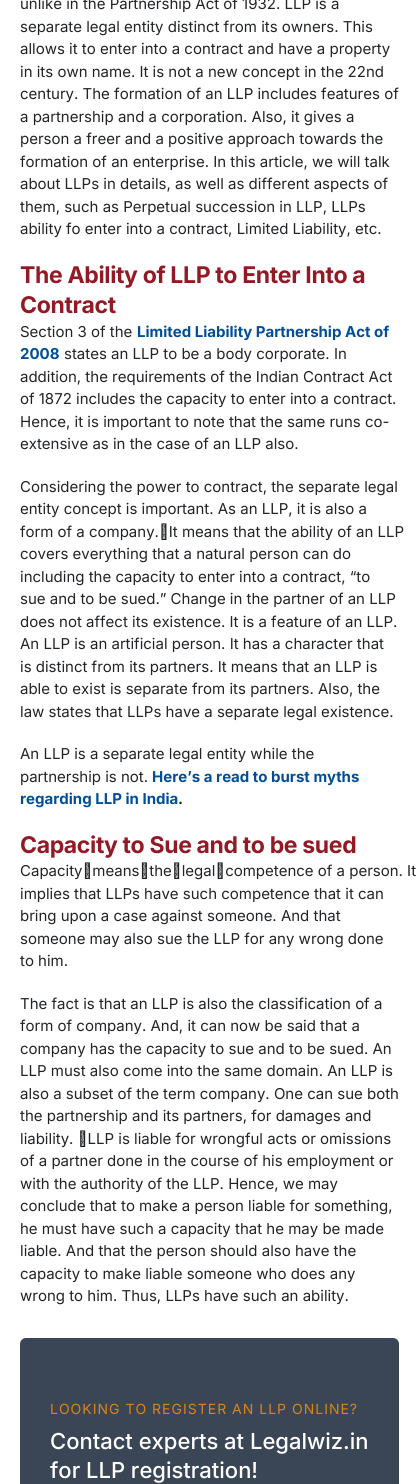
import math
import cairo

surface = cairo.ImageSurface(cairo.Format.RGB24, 419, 1484)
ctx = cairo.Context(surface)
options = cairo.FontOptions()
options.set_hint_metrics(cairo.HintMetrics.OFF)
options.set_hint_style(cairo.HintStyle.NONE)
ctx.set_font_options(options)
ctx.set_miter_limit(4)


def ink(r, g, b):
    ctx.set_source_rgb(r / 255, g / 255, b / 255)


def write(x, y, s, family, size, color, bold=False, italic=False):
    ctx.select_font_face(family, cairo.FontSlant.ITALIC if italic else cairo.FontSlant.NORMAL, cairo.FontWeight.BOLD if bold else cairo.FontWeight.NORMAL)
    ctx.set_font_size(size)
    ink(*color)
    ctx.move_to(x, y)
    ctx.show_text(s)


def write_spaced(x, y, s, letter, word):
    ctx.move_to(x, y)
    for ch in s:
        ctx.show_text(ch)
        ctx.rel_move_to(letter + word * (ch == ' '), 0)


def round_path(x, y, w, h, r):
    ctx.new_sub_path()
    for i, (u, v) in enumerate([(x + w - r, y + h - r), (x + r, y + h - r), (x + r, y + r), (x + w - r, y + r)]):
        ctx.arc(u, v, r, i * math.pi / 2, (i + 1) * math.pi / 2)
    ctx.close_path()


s1 = dict(family="Inter", size=15, color=(33, 35, 38))
s2 = dict(family="Inter", size=15, color=(0, 78, 152), bold=True)
s3 = dict(family="Inter", size=15, color=(33, 35, 38), bold=True)
s4 = dict(family="Inter Medium", size=22, color=(255, 255, 255))

ink(255, 255, 255)
ctx.paint()
write(20, 9, "unlike in the Partnership Act of 1932. LLP is a", **s1)
write(20, 32, "separate legal entity distinct from its owners. This", **s1)
write(20, 54, "allows it to enter into a contract and have a property", **s1)
write(20, 77, "in its own name. It is not a new concept in the 22nd", **s1)
write(20, 99, "century. The formation of an LLP includes features of", **s1)
write(20, 122, "a partnership and a corporation. Also, it gives a", **s1)
write(20, 144, "person a freer and a positive approach towards the", **s1)
write(20, 167, "formation of an enterprise. In this article, we will talk", **s1)
write(20, 189, "about LLPs in details, as well as different aspects of", **s1)
write(20, 212, "them, such as Perpetual succession in LLP, LLPs", **s1)
write(20, 234, "ability fo enter into a contract, Limited Liability, etc.", **s1)
ctx.select_font_face("Inter", cairo.FontSlant.NORMAL, cairo.FontWeight.BOLD)
ctx.set_font_size(23)
ink(147, 26, 37)
write_spaced(20, 283, "The Ability of LLP to Enter Into a", -0.35, 0)
write_spaced(20, 313, "Contract", -0.35, 0)
write(20, 337, "Section 3 of the", **s1)
write(137, 337, "Limited Liability Partnership Act of", **s2)
write(20, 359, "2008", **s2)
write(64, 359, "states an LLP to be a body corporate. In", **s1)
write(20, 382, "addition, the requirements of the Indian Contract Act", **s1)
write(20, 404, "of 1872 includes the capacity to enter into a contract.", **s1)
write(20, 427, "Hence, it is important to note that the same runs co-", **s1)
write(20, 449, "extensive as in the case of an LLP also.", **s1)
write(20, 492, "Considering the power to contract, the separate legal", **s1)
write(20, 514, "entity concept is important. As an LLP, it is also a", **s1)
write(20, 537, "form of a company. It means that the ability of an LLP", **s1)
write(20, 559, "covers everything that a natural person can do", **s1)
write(20, 582, "including the capacity to enter into a contract, “to", **s1)
write(20, 604, "sue and to be sued.” Change in the partner of an LLP", **s1)
write(20, 627, "does not affect its existence. It is a feature of an LLP.", **s1)
write(20, 649, "An LLP is an artificial person. It has a character that", **s1)
write(20, 672, "is distinct from its partners. It means that an LLP is", **s1)
write(20, 694, "able to exist is separate from its partners. Also, the", **s1)
write(20, 717, "law states that LLPs have a separate legal existence.", **s1)
write(20, 759, "An LLP is a separate legal entity while the", **s1)
write(20, 782, "partnership is not.", **s1)
write(152, 782, "Here’s a read to burst myths", **s2)
write(20, 804, "regarding LLP in India", **s2)
write(178, 804, ".", **s3)
ctx.set_font_size(23)
ink(147, 26, 37)
write_spaced(20, 853, "Capacity to Sue and to be sued", -0.35, 0)
write(20, 876, "Capacity means the legal competence of a person. It", **s1)
write(20, 899, "implies that LLPs have such competence that it can", **s1)
write(20, 921, "bring upon a case against someone. And that", **s1)
write(20, 944, "someone may also sue the LLP for any wrong done", **s1)
write(20, 966, "to him.", **s1)
write(20, 1009, "The fact is that an LLP is also the classification of a", **s1)
write(20, 1031, "form of company. And, it can now be said that a", **s1)
write(20, 1054, "company has the capacity to sue and to be sued. An", **s1)
write(20, 1076, "LLP must also come into the same domain. An LLP is", **s1)
write(20, 1099, "also a subset of the term company. One can sue both", **s1)
write(20, 1121, "the partnership and its partners, for damages and", **s1)
write(20, 1144, "liability.  LLP is liable for wrongful acts or omissions", **s1)
write(20, 1166, "of a partner done in the course of his employment or", **s1)
write(20, 1189, "with the authority of the LLP. Hence, we may", **s1)
write(20, 1211, "conclude that to make a person liable for something,", **s1)
write(20, 1234, "he must have such a capacity that he may be made", **s1)
write(20, 1256, "liable. And that the person should also have the", **s1)
write(20, 1279, "capacity to make liable someone who does any", **s1)
write(20, 1301, "wrong to him. Thus, LLPs have such an ability.", **s1)
ink(58, 70, 85)
round_path(20, 1338, 379, 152, 6)
ctx.fill()
ctx.set_font_size(14)
ink(216, 132, 25)
write_spaced(50, 1414, "LOOKING TO REGISTER AN LLP ONLINE?", 1, 0)
write(50, 1449, "Contact experts at Legalwiz.in", **s4)
write(50, 1478, "for LLP registration!", **s4)
surface.write_to_png("screenshot.png")
